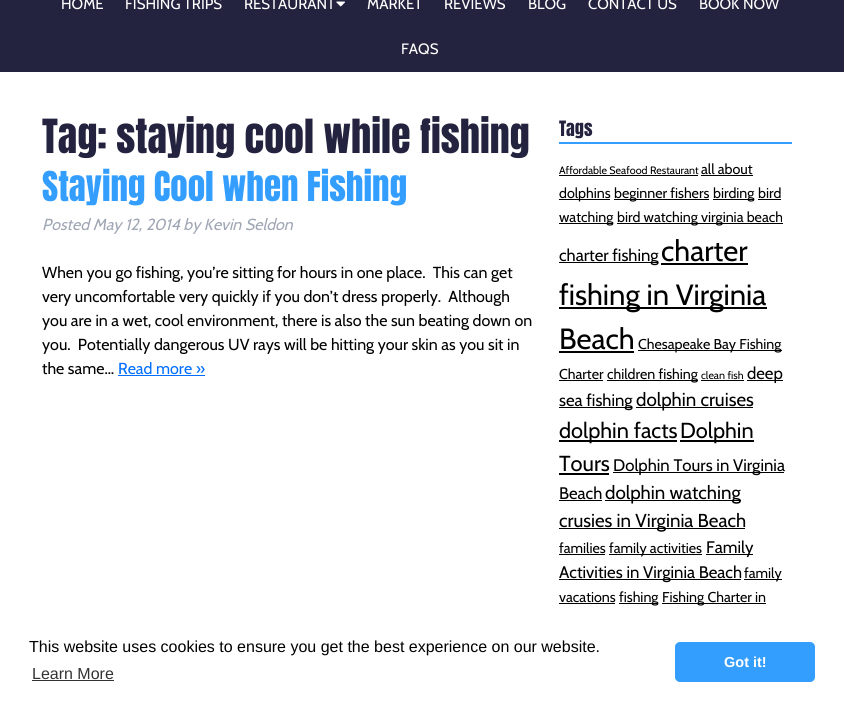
import math
import cairo

surface = cairo.ImageSurface(cairo.Format.RGB24, 844, 705)
ctx = cairo.Context(surface)
options = cairo.FontOptions()
options.set_hint_metrics(cairo.HintMetrics.OFF)
options.set_hint_style(cairo.HintStyle.NONE)
ctx.set_font_options(options)
ctx.set_miter_limit(4)


def ink(r, g, b):
    ctx.set_source_rgb(r / 255, g / 255, b / 255)


def write(x, y, s, family, size, color, bold=False, italic=False):
    ctx.select_font_face(family, cairo.FontSlant.ITALIC if italic else cairo.FontSlant.NORMAL, cairo.FontWeight.BOLD if bold else cairo.FontWeight.NORMAL)
    ctx.set_font_size(size)
    ink(*color)
    ctx.move_to(x, y)
    ctx.show_text(s)


def block(x, y, w, h, *color):
    ink(*color)
    ctx.rectangle(x, y, w, h)
    ctx.fill()


def round_path(x, y, w, h, r):
    ctx.new_sub_path()
    for i, (u, v) in enumerate([(x + w - r, y + h - r), (x + r, y + h - r), (x + r, y + r), (x + w - r, y + r)]):
        ctx.arc(u, v, r, i * math.pi / 2, (i + 1) * math.pi / 2)
    ctx.close_path()


def paste(path, x, y, w, h):
    ctx.save()
    ctx.set_source_surface(cairo.ImageSurface.create_from_png(path), x, y)
    ctx.rectangle(x, y, w, h)
    ctx.fill()
    ctx.restore()


s1 = dict(family="Cabin", size=15, color=(255, 255, 255))
s2 = dict(family="Anton", size=40, color=(35, 35, 63))
s3 = dict(family="Anton", size=35, color=(51, 158, 254))
s4 = dict(family="Cabin", size=16, color=(159, 166, 180), italic=True)
s5 = dict(family="Cabin", size=16, color=(0, 0, 0))
s6 = dict(family="Cabin", size=16, color=(0, 110, 255))
s7 = dict(family="Anton", size=18, color=(35, 35, 63))
s8 = dict(family="Cabin", size=10.7, color=(0, 0, 0))
s9 = dict(family="Cabin", size=14.25, color=(0, 0, 0))
s10 = dict(family="Cabin", size=16.75, color=(0, 0, 0))
s11 = dict(family="Cabin", size=29.25, color=(0, 0, 0))
s12 = dict(family="Cabin", size=18.75, color=(0, 0, 0))
s13 = dict(family="Cabin", size=21.75, color=(0, 0, 0))
s14 = dict(family="Liberation Sans", size=16, color=(0, 0, 0))
s15 = dict(family="Liberation Sans", size=16, color=(51, 51, 51))
s16 = dict(family="Liberation Sans", size=14.5, color=(255, 255, 255), bold=True)

ink(255, 255, 255)
ctx.paint()
block(0, 0, 844, 72, 35, 35, 63)
write(61, 9, "HOME", **s1)
write(125, 9, "FISHING TRIPS", **s1)
write(244, 9, "RESTAURANT", **s1)
paste("pic1.png", 336, 1, 9, 6)
write(367, 9, "MARKET", **s1)
write(444, 9, "REVIEWS", **s1)
write(528, 9, "BLOG", **s1)
write(588, 9, "CONTACT US", **s1)
write(699, 9, "BOOK NOW", **s1)
write(401, 54, "FAQS", **s1)
write(42, 153, "Tag: staying cool while fishing", **s2)
write(42, 201, "Staying Cool when Fishing", **s3)
write(42, 230, "Posted May 12, 2014 by Kevin Seldon", **s4)
write(42, 278, "When you go fishing, you’re sitting for hours in one place.  This can get", **s5)
write(42, 302, "very uncomfortable very quickly if you don’t dress properly.  Although", **s5)
write(42, 326, "you are in a wet, cool environment, there is also the sun beating down on", **s5)
write(42, 350, "you.  Potentially dangerous UV rays will be hitting your skin as you sit in", **s5)
write(42, 374, "the same…", **s5)
write(118, 374, "Read more »", **s6)
block(118, 375, 87, 1, 0, 110, 255)
block(559, 142, 233, 2, 51, 158, 254)
write(559, 136, "Tags", **s7)
write(559, 174, "Affordable Seafood Restaurant", **s8)
block(559, 175, 139, 1, 0, 0, 0)
write(701, 174, "all about", **s9)
block(701, 175, 52, 1, 0, 0, 0)
block(559, 199, 51, 1, 0, 0, 0)
write(559, 198, "dolphins", **s9)
block(614, 199, 95, 1, 0, 0, 0)
write(614, 198, "beginner fishers", **s9)
block(713, 199, 41, 1, 0, 0, 0)
write(713, 198, "birding", **s9)
write(758, 198, "bird", **s9)
block(758, 199, 23, 1, 0, 0, 0)
block(559, 223, 54, 1, 0, 0, 0)
write(559, 222, "watching", **s9)
block(617, 223, 166, 1, 0, 0, 0)
write(617, 222, "bird watching virginia beach", **s9)
block(559, 262, 99, 1, 0, 0, 0)
write(559, 261, "charter fishing", **s10)
write(661, 261, "charter", **s11)
block(661, 263, 87, 2, 0, 0, 0)
block(559, 307, 208, 2, 0, 0, 0)
write(559, 305, "fishing in Virginia", **s11)
write(559, 349, "Beach", **s11)
block(559, 351, 75, 2, 0, 0, 0)
block(638, 350, 144, 1, 0, 0, 0)
write(638, 349, "Chesapeake Bay Fishing", **s9)
write(559, 379, "Charter", **s9)
block(559, 380, 44, 1, 0, 0, 0)
block(607, 380, 91, 1, 0, 0, 0)
write(607, 379, "children fishing", **s9)
write(701, 379, "clean fish", **s8)
block(701, 380, 43, 1, 0, 0, 0)
block(747, 380, 36, 1, 0, 0, 0)
write(747, 379, "deep", **s10)
block(559, 407, 73, 1, 0, 0, 0)
write(559, 406, "sea fishing", **s10)
block(636, 407, 117, 1, 0, 0, 0)
write(636, 406, "dolphin cruises", **s12)
block(559, 440, 118, 2, 0, 0, 0)
write(559, 438, "dolphin facts", **s13)
block(680, 440, 74, 2, 0, 0, 0)
write(680, 438, "Dolphin", **s13)
write(559, 471, "Tours", **s13)
block(559, 473, 50, 2, 0, 0, 0)
block(613, 472, 171, 1, 0, 0, 0)
write(613, 471, "Dolphin Tours in Virginia", **s10)
write(559, 499, "Beach", **s10)
block(559, 500, 43, 1, 0, 0, 0)
block(605, 500, 136, 1, 0, 0, 0)
write(605, 499, "dolphin watching", **s12)
block(559, 528, 186, 1, 0, 0, 0)
write(559, 527, "crusies in Virginia Beach", **s12)
write(559, 553, "families", **s9)
block(559, 554, 46, 1, 0, 0, 0)
block(609, 554, 93, 1, 0, 0, 0)
write(609, 553, "family activities", **s9)
block(706, 554, 47, 1, 0, 0, 0)
write(706, 553, "Family", **s10)
block(559, 579, 182, 1, 0, 0, 0)
write(559, 578, "Activities in Virginia Beach", **s10)
block(744, 579, 38, 1, 0, 0, 0)
write(744, 578, "family", **s9)
write(559, 602, "vacations", **s9)
block(559, 603, 56, 1, 0, 0, 0)
block(619, 603, 39, 1, 0, 0, 0)
write(619, 602, "fishing", **s9)
block(662, 603, 104, 1, 0, 0, 0)
write(662, 602, "Fishing Charter in", **s9)
write(29, 652, "This website uses cookies to ensure you get the best experience on our website.", **s14)
write(32, 679, "Learn More", **s15)
block(32, 680, 82, 1, 51, 51, 51)
ink(51, 158, 254)
round_path(675, 642, 140, 40, 5)
ctx.fill()
write(724, 667, "Got it!", **s16)
surface.write_to_png("screenshot.png")
